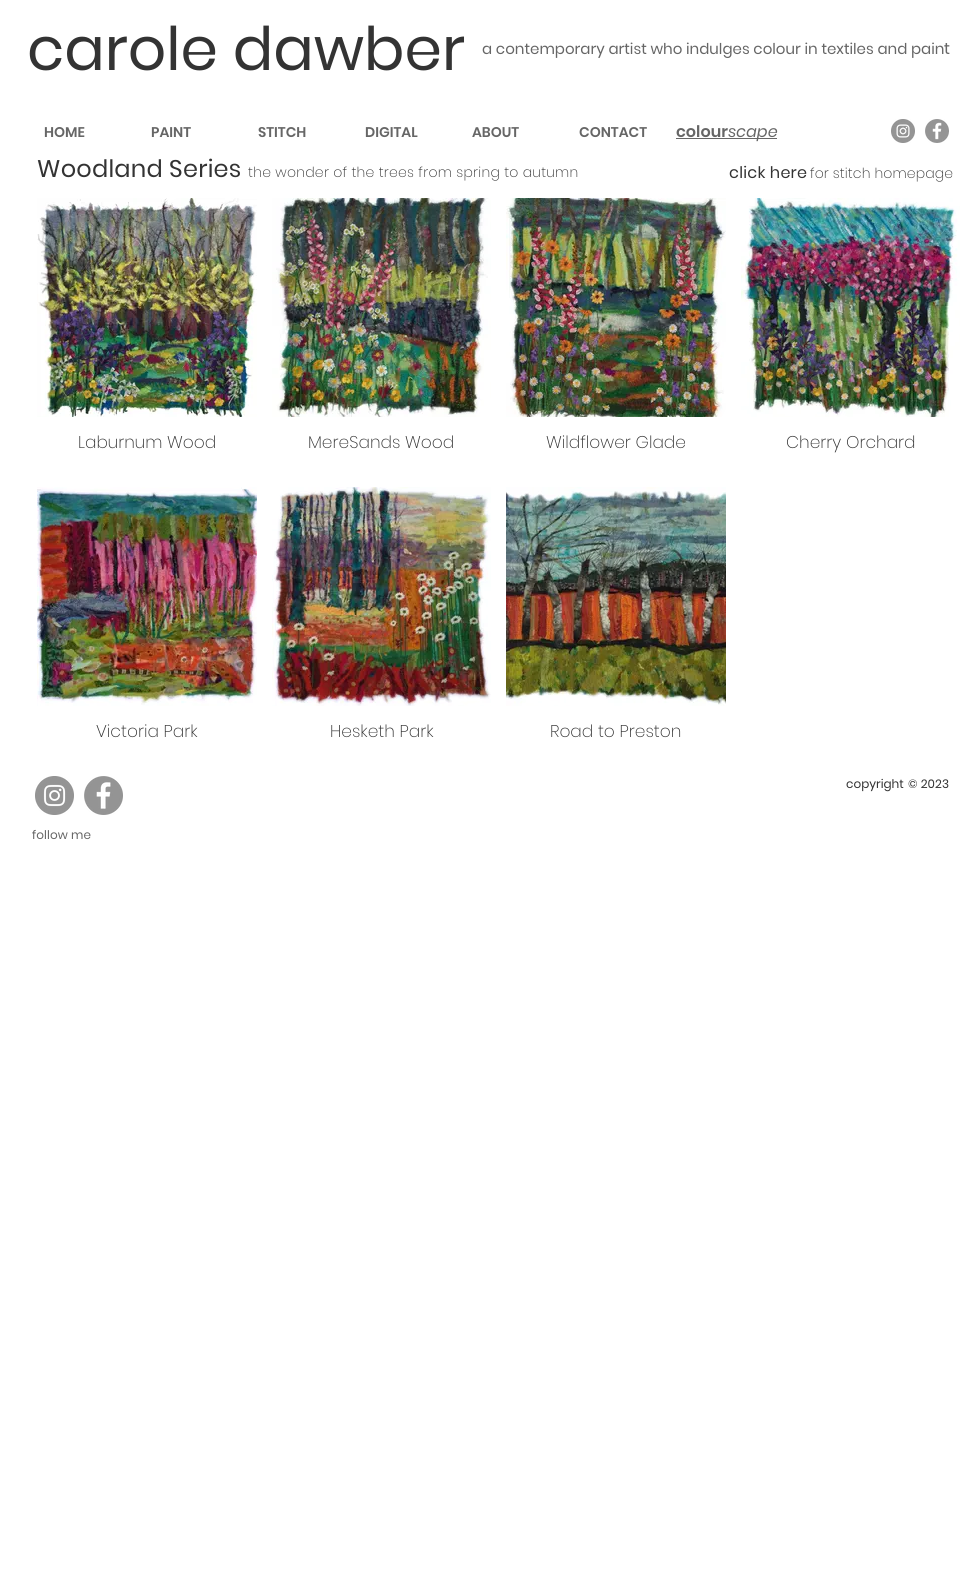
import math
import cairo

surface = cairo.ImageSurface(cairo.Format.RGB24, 975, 1584)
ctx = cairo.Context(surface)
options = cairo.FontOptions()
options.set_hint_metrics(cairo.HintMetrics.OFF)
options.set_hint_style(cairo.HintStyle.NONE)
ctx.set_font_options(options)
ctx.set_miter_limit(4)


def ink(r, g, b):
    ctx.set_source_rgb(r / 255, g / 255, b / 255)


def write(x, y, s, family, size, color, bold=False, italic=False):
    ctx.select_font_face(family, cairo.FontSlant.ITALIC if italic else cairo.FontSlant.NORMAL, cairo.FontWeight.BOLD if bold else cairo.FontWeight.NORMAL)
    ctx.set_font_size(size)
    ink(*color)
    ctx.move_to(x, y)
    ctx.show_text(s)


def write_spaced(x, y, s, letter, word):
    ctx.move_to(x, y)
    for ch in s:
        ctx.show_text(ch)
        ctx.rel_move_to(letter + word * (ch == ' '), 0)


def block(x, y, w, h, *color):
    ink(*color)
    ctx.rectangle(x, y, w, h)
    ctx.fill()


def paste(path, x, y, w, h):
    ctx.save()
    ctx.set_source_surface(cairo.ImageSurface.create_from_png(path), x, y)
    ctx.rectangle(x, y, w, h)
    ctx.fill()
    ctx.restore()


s1 = dict(family="Poppins", size=60, color=(51, 51, 51))
s2 = dict(family="Poppins", size=15, color=(102, 102, 102))
s3 = dict(family="Poppins", size=16, color=(102, 102, 102))
s4 = dict(family="Poppins SemiBold", size=14, color=(102, 102, 102))
s5 = dict(family="Poppins SemiBold", size=16, color=(102, 102, 102))
s6 = dict(family="Poppins", size=16, color=(102, 102, 102), italic=True)
s7 = dict(family="Poppins ExtraLight", size=17, color=(51, 51, 51))
s8 = dict(family="Poppins", size=12, color=(51, 51, 51))

ink(255, 255, 255)
ctx.paint()
write(27, 70, "carole dawber", **s1)
write(482, 54, "a contemporary artist who indulges colour in textiles and pain", **s2)
write(944, 54, "t", **s3)
write(44, 137, "HOME", **s4)
write(151, 137, "PAINT", **s4)
write(258, 137, "STITCH", **s4)
write(365, 137, "DIGITAL", **s4)
write(472, 137, "ABOUT", **s4)
write(579, 137, "CONTACT", **s4)
write(676, 137, "colour", **s5)
block(676, 138, 101, 1, 102, 102, 102)
write(728, 137, "scape", **s6)
paste("pic1.png", 891, 119, 24, 24)
paste("pic2.png", 925, 119, 24, 24)
ctx.select_font_face("Poppins")
ctx.set_font_size(24)
ink(51, 51, 51)
write_spaced(37, 177, "Woodland Series", 0.25, 0)
ctx.select_font_face("Poppins ExtraLight")
ctx.set_font_size(14)
write_spaced(248, 177, "the wonder of the trees from spring to autumn", 0.25, 0)
ctx.select_font_face("Poppins")
ctx.set_font_size(16)
write_spaced(729, 178, "click here", 0.25, 0)
ctx.select_font_face("Poppins ExtraLight")
ctx.set_font_size(14)
write_spaced(810, 178, "for stitch homepage", 0.1, 0)
paste("pic3.png", 37, 198, 220, 219)
write(78, 448, "Laburnum Wood", **s7)
paste("pic4.png", 272, 198, 219, 219)
write(308, 448, "MereSands Wood", **s7)
paste("pic5.png", 506, 198, 220, 219)
write(546, 448, "Wildflower Glade", **s7)
paste("pic6.png", 741, 198, 219, 219)
write(786, 448, "Cherry Orchard", **s7)
paste("pic7.png", 37, 487, 220, 219)
write(96, 737, "Victoria Park", **s7)
paste("pic8.png", 272, 487, 219, 219)
write(330, 737, "Hesketh Park", **s7)
paste("pic9.png", 506, 487, 220, 219)
write(550, 737, "Road to Preston", **s7)
write(846, 788, "copyright", **s8)
write_spaced(908, 788, "© 2023", 0.1, 0)
paste("pic10.png", 35, 776, 39, 39)
paste("pic11.png", 84, 776, 39, 39)
ctx.select_font_face("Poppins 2")
ink(102, 102, 102)
write_spaced(32, 839, "follow me", 0.1, 0)
surface.write_to_png("screenshot.png")
